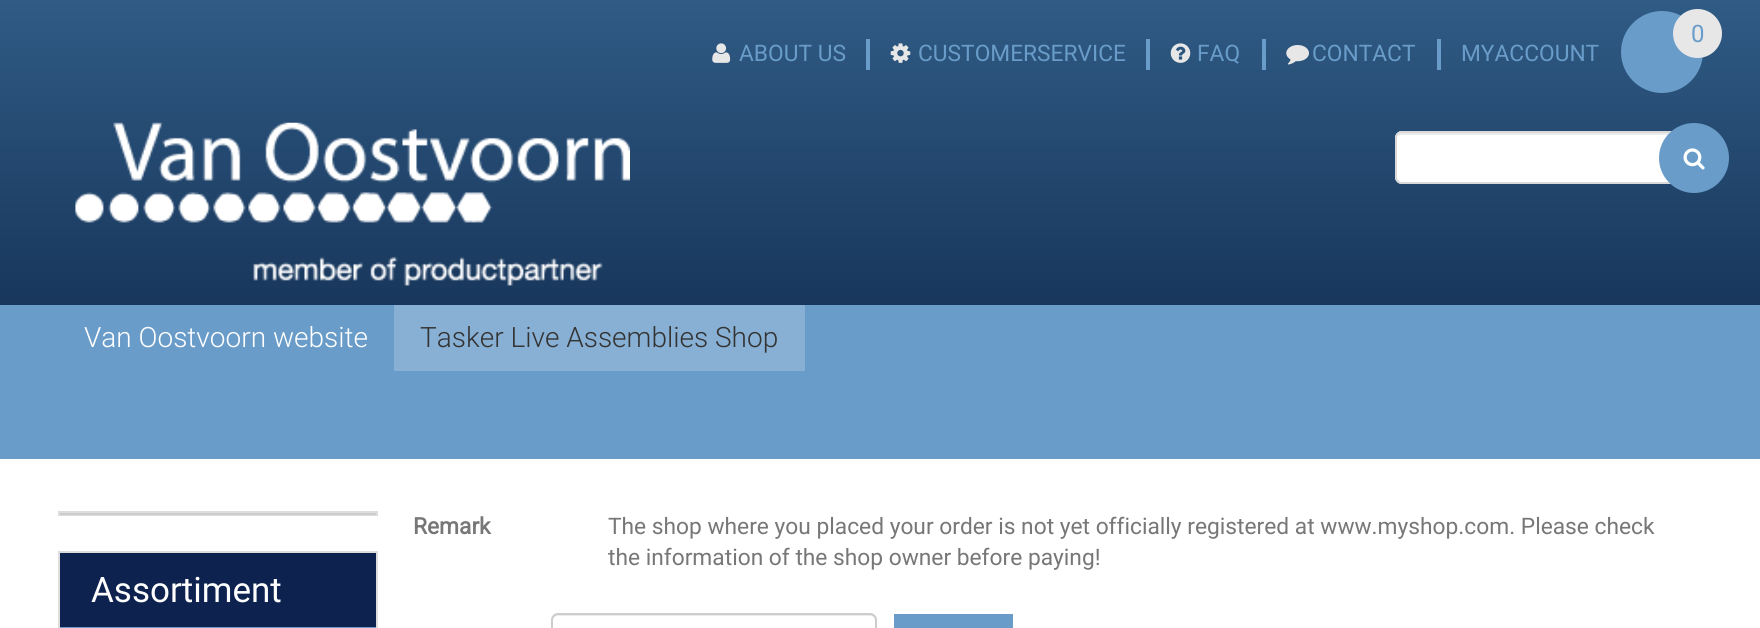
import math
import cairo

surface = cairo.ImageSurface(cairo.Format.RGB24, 1760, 628)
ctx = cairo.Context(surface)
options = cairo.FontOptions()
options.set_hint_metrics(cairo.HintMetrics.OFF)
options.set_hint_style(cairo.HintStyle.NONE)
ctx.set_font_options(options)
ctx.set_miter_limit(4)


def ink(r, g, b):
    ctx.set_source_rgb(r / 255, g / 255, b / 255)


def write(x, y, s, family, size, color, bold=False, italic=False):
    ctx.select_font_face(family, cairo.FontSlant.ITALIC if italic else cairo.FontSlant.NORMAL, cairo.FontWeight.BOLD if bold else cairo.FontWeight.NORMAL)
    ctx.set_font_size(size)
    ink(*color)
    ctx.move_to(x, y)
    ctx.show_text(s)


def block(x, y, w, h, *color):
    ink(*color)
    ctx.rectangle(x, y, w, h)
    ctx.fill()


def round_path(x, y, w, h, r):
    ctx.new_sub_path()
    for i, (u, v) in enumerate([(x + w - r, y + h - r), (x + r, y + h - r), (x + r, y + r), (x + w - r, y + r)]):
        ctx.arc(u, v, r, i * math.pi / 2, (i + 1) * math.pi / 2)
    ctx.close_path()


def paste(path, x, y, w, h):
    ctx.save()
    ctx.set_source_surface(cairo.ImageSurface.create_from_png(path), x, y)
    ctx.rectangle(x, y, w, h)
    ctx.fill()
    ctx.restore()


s1 = dict(family="Roboto", size=24, color=(105, 156, 201))
s2 = dict(family="Roboto", size=22.75, color=(105, 156, 201))
s3 = dict(family="Roboto Light", size=28, color=(255, 255, 255))
s4 = dict(family="Roboto Light", size=28, color=(51, 51, 51))
s5 = dict(family="Roboto", size=22.75, color=(119, 119, 119), bold=True)
s6 = dict(family="Roboto", size=22.75, color=(119, 119, 119))
s7 = dict(family="Roboto", size=35, color=(255, 255, 255))

ink(255, 255, 255)
ctx.paint()
gradient = cairo.LinearGradient(880, 0, 880, 459)
gradient.add_color_stop_rgba(0, 0.188, 0.357, 0.522, 1)
gradient.add_color_stop_rgba(1, 0.047, 0.141, 0.275, 1)
ctx.set_source(gradient)
ctx.rectangle(0, 0, 1760, 305)
ctx.fill()
ink(105, 156, 201)
ctx.arc(1662, 52, 41, 0, 2 * math.pi)
ctx.fill()
ink(232, 231, 231)
ctx.arc(1697.5, 33.5, 24.5, 0, 2 * math.pi)
ctx.fill()
write(1691, 42, "0", **s1)
block(866, 39, 4, 31, 105, 156, 201)
paste("pic1.png", 712, 43, 19, 20)
write(739, 61, "ABOUT US", **s2)
block(1146, 39, 4, 31, 105, 156, 201)
paste("pic2.png", 890, 43, 21, 20)
write(918, 61, "CUSTOMERSERVICE", **s2)
block(1262, 39, 4, 31, 105, 156, 201)
paste("pic3.png", 1170, 43, 21, 20)
write(1197, 61, "FAQ", **s2)
block(1437, 39, 4, 31, 105, 156, 201)
paste("pic4.png", 1286, 45, 23, 20)
write(1312, 61, "CONTACT", **s2)
write(1461, 61, "MYACCOUNT", **s2)
paste("pic5.png", 75, 122, 555, 164)
ink(255, 255, 255)
round_path(1395, 131, 322, 53, 7)
ctx.fill()
ink(236, 236, 236)
ctx.new_path()
ctx.move_to(1402, 135)
ctx.line_to(1710, 135)
ctx.curve_to(1713, 135, 1715, 137, 1715, 140)
ctx.line_to(1715, 138)
ctx.curve_to(1715, 135, 1713, 133, 1710, 133)
ctx.line_to(1402, 133)
ctx.curve_to(1400, 133, 1397, 135, 1397, 137)
ctx.curve_to(1398, 136, 1400, 135, 1402, 135)
ctx.close_path()
ctx.fill()
round_path(1396, 132, 320, 51, 6)
ink(217, 217, 217)
ctx.stroke()
ink(105, 156, 201)
ctx.arc(1694, 158, 35, 0, 2 * math.pi)
ctx.fill()
paste("pic6.png", 1683, 148, 22, 22)
block(0, 305, 1760, 154, 105, 156, 201)
write(84, 347, "Van Oostvoorn website", **s3)
block(394, 305, 411, 66, 135, 176, 212)
write(420, 347, "Tasker Live Assemblies Shop", **s4)
write(413, 534, "Remark", **s5)
write(608, 534, "The shop where you placed your order is not yet officially registered at www.myshop.com. Please check", **s6)
write(608, 565, "the information of the shop owner before paying!", **s6)
ink(236, 236, 236)
ctx.new_path()
ctx.move_to(558, 616)
ctx.line_to(870, 616)
ctx.curve_to(873, 616, 875, 618, 875, 621)
ctx.line_to(875, 619)
ctx.curve_to(875, 616, 873, 614, 870, 614)
ctx.line_to(558, 614)
ctx.curve_to(555, 614, 553, 616, 553, 619)
ctx.line_to(553, 621)
ctx.curve_to(553, 618, 555, 616, 558, 616)
ctx.close_path()
ctx.fill()
round_path(552, 614, 324, 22, 6)
ink(204, 204, 204)
ctx.stroke()
block(894, 614, 119, 14, 105, 156, 201)
ctx.rectangle(59, 512, 318, 3)
ink(221, 221, 221)
ctx.stroke()
block(60, 513, 316, 2, 204, 204, 204)
ctx.rectangle(59, 552, 318, 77)
ink(221, 221, 221)
ctx.stroke()
block(60, 553, 316, 74, 13, 34, 79)
block(60, 627, 316, 1, 105, 156, 201)
write(91, 602, "Assortiment", **s7)
surface.write_to_png("screenshot.png")
